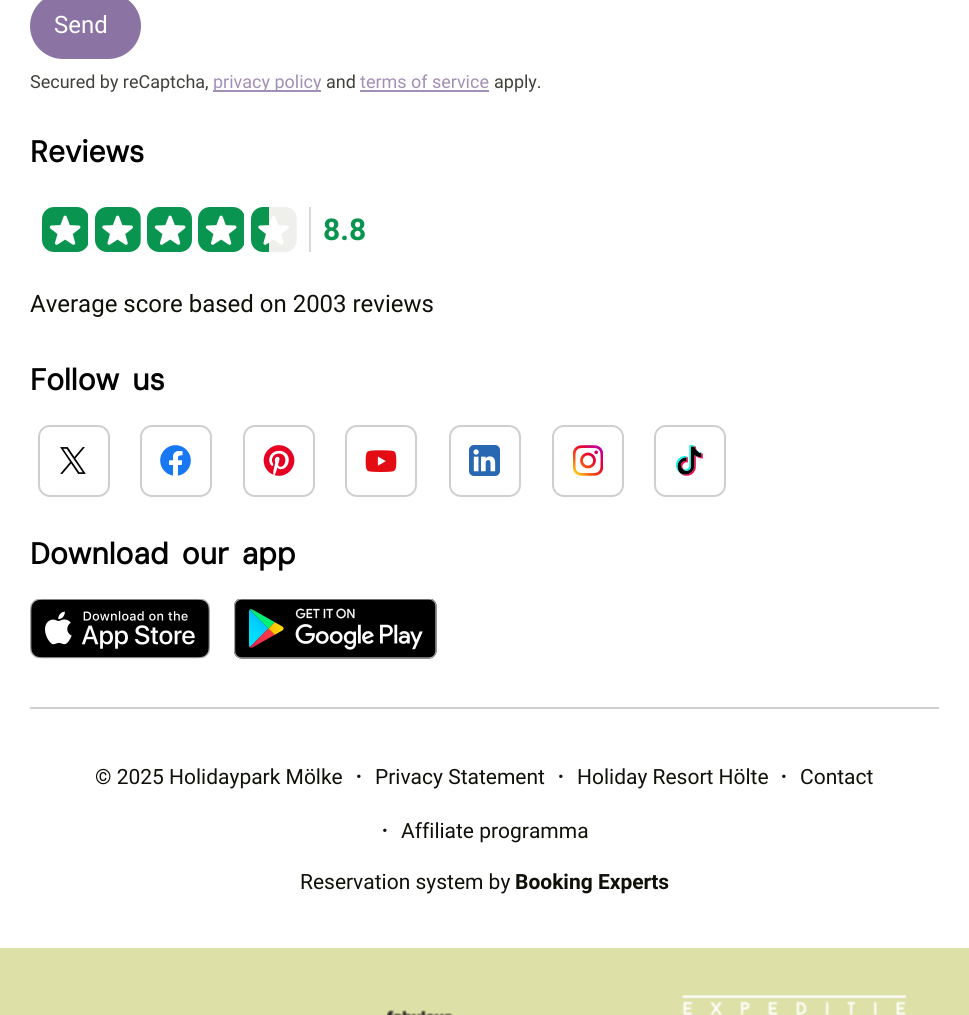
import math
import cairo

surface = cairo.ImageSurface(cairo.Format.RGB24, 969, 1015)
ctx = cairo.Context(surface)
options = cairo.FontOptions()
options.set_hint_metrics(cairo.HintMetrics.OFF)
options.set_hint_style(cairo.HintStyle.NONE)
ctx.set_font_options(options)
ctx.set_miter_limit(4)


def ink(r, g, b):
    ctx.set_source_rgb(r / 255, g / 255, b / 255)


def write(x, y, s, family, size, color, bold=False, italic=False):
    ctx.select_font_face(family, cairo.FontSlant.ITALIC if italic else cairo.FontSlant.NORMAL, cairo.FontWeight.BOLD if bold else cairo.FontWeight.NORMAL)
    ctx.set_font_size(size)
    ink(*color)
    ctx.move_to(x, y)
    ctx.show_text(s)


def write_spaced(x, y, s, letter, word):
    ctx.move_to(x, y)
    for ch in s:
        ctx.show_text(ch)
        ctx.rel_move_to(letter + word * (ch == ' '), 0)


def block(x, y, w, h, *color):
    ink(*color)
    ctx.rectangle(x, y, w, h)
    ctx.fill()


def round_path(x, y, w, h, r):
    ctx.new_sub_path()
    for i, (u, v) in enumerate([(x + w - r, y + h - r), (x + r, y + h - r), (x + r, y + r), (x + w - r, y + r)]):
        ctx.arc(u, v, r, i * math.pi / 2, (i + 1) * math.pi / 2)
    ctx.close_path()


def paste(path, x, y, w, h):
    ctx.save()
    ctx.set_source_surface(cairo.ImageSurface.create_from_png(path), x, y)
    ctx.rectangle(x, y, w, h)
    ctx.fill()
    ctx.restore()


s1 = dict(family="Roboto", size=24, color=(255, 255, 255))
s2 = dict(family="Roboto", size=18, color=(63, 65, 58))
s3 = dict(family="Roboto", size=18, color=(162, 143, 182))
s4 = dict(family="DM Sans", size=30, color=(0, 0, 0), bold=True)
s5 = dict(family="Roboto", size=30, color=(9, 149, 79), bold=True)
s6 = dict(family="Roboto", size=24, color=(15, 17, 9))
s7 = dict(family="Roboto", size=21, color=(15, 17, 9))
s8 = dict(family="Roboto", size=30, color=(15, 17, 9))
s9 = dict(family="Roboto", size=21, color=(15, 17, 9), bold=True)

ink(255, 255, 255)
ctx.paint()
ink(139, 115, 164)
round_path(30, -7, 111, 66, 33)
ctx.fill()
write(54, 33, "Send", **s1)
write(30, 88, "Secured by reCaptcha,", **s2)
block(213, 90, 108, 2, 162, 143, 182)
write(213, 88, "privacy policy", **s3)
write(326, 88, "and", **s2)
write(360, 88, "terms of service", **s3)
block(360, 90, 129, 2, 162, 143, 182)
write(494, 88, "apply.", **s2)
write(30, 162, "Reviews", **s4)
paste("pic1.png", 42, 207, 46, 45)
paste("pic2.png", 95, 207, 46, 45)
paste("pic3.png", 147, 207, 45, 45)
paste("pic1.png", 198, 207, 46, 45)
paste("pic4.png", 251, 207, 46, 45)
block(309, 207, 2, 45, 215, 218, 217)
write(323, 240, "8.8", **s5)
write(30, 312, "Average score based on 2003 reviews", **s6)
ctx.select_font_face("DM Sans", cairo.FontSlant.NORMAL, cairo.FontWeight.BOLD)
ctx.set_font_size(30)
ink(0, 0, 0)
write_spaced(30, 390, "Follow us", 0, 5)
round_path(39, 426, 70, 70, 11)
ink(207, 207, 206)
ctx.stroke()
paste("pic5.png", 60, 447, 26, 27)
round_path(141, 426, 70, 70, 11)
ctx.stroke()
paste("pic6.png", 160, 445, 31, 31)
round_path(244, 426, 70, 70, 11)
ctx.stroke()
paste("pic7.png", 263, 445, 32, 31)
round_path(346, 426, 70, 70, 11)
ctx.stroke()
paste("pic8.png", 365, 450, 32, 22)
round_path(450, 426, 70, 70, 11)
ctx.stroke()
paste("pic9.png", 469, 445, 31, 31)
round_path(553, 426, 70, 70, 11)
ctx.stroke()
paste("pic10.png", 573, 445, 30, 31)
round_path(655, 426, 70, 70, 11)
ctx.stroke()
paste("pic11.png", 675, 445, 28, 31)
ink(0, 0, 0)
write_spaced(30, 564, "Download our app", 0, 5)
paste("pic12.png", 30, 599, 180, 60)
paste("pic13.png", 234, 599, 203, 60)
block(30, 707, 909, 2, 207, 207, 206)
write(95, 784, "© 2025 Holidaypark Mölke", **s7)
write(355, 787, "·", **s8)
write(375, 784, "Privacy Statement", **s7)
write(557, 787, "·", **s8)
write(577, 784, "Holiday Resort Hölte", **s7)
write(780, 787, "·", **s8)
write(800, 784, "Contact", **s7)
write(381, 841, "·", **s8)
write(401, 838, "Affiliate programma", **s7)
write(300, 889, "Reservation system by", **s7)
write(515, 889, "Booking Experts", **s9)
block(0, 948, 969, 67, 221, 225, 168)
paste("pic14.png", 387, 1010, 66, 5)
paste("pic15.png", 682, 995, 224, 20)
surface.write_to_png("screenshot.png")
